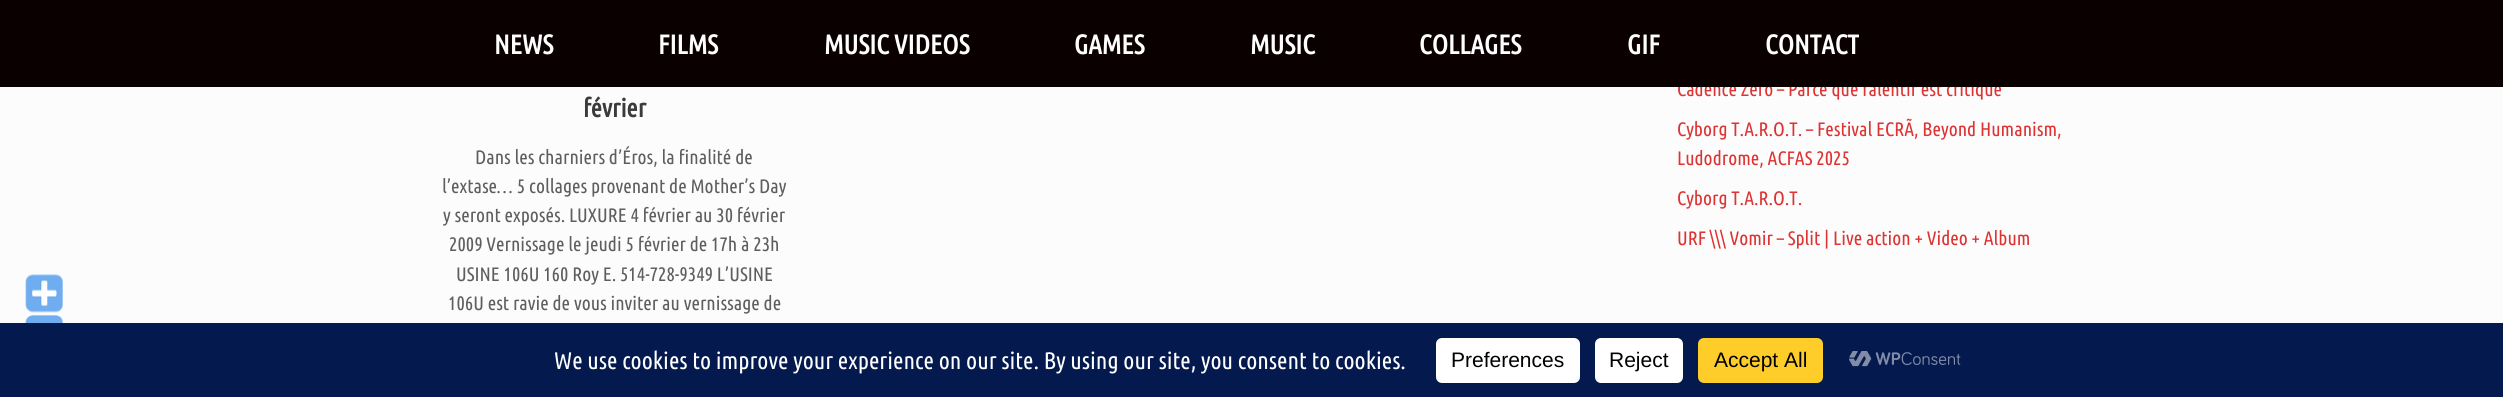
import math
import cairo

surface = cairo.ImageSurface(cairo.Format.RGB24, 2503, 397)
ctx = cairo.Context(surface)
options = cairo.FontOptions()
options.set_hint_metrics(cairo.HintMetrics.OFF)
options.set_hint_style(cairo.HintStyle.NONE)
ctx.set_font_options(options)
ctx.set_miter_limit(4)


def ink(r, g, b):
    ctx.set_source_rgb(r / 255, g / 255, b / 255)


def write(x, y, s, family, size, color, bold=False, italic=False):
    ctx.select_font_face(family, cairo.FontSlant.ITALIC if italic else cairo.FontSlant.NORMAL, cairo.FontWeight.BOLD if bold else cairo.FontWeight.NORMAL)
    ctx.set_font_size(size)
    ink(*color)
    ctx.move_to(x, y)
    ctx.show_text(s)


def block(x, y, w, h, *color):
    ink(*color)
    ctx.rectangle(x, y, w, h)
    ctx.fill()


def round_path(x, y, w, h, r):
    ctx.new_sub_path()
    for i, (u, v) in enumerate([(x + w - r, y + h - r), (x + r, y + h - r), (x + r, y + r), (x + w - r, y + r)]):
        ctx.arc(u, v, r, i * math.pi / 2, (i + 1) * math.pi / 2)
    ctx.close_path()


def paste(path, x, y, w, h):
    ctx.save()
    ctx.set_source_surface(cairo.ImageSurface.create_from_png(path), x, y)
    ctx.rectangle(x, y, w, h)
    ctx.fill()
    ctx.restore()


s1 = dict(family="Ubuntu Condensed", size=19.5, color=(221, 51, 51))
s2 = dict(family="Ubuntu Condensed", size=27, color=(255, 255, 255), bold=True)
s3 = dict(family="Ubuntu Condensed", size=25.5, color=(59, 59, 59), bold=True)
s4 = dict(family="Ubuntu Condensed", size=19.5, color=(94, 94, 94))
s5 = dict(family="Ubuntu Condensed", size=24, color=(255, 255, 255))
s6 = dict(family="Liberation Sans", size=21, color=(0, 0, 0))

ink(252, 252, 252)
ctx.paint()
paste("pic1.png", 25, 274, 38, 39)
paste("pic2.png", 25, 315, 38, 8)
write(1677, 96, "Cadence Zéro – Parce que ralentir est critique", **s1)
block(0, 0, 2503, 87, 10, 0, 0)
write(494, 54, "NEWS", **s2)
write(658, 54, "FILMS", **s2)
write(824, 54, "MUSIC VIDEOS", **s2)
write(1074, 54, "GAMES", **s2)
write(1250, 54, "MUSIC", **s2)
write(1419, 54, "COLLAGES", **s2)
write(1627, 54, "GIF", **s2)
write(1765, 54, "CONTACT", **s2)
write(583, 117, "février", **s3)
write(475, 164, "Dans les charniers d’Éros, la finalité de", **s4)
write(442, 193, "l’extase… 5 collages provenant de Mother’s Day", **s4)
write(443, 222, "y seront exposés. LUXURE 4 février au 30 février", **s4)
write(449, 251, "2009 Vernissage le jeudi 5 février de 17h à 23h", **s4)
write(456, 281, "USINE 106U 160 Roy E. 514-728-9349 L’USINE", **s4)
write(448, 310, "106U est ravie de vous inviter au vernissage de", **s4)
write(1677, 136, "Cyborg T.A.R.O.T. – Festival ECRÃ, Beyond Humanism,", **s1)
write(1677, 165, "Ludodrome, ACFAS 2025", **s1)
write(1677, 205, "Cyborg T.A.R.O.T.", **s1)
write(1677, 245, "URF \\\\\\ Vomir – Split | Live action + Video + Album", **s1)
block(0, 323, 2503, 74, 4, 25, 78)
write(554, 369, "We use cookies to improve your experience on our site. By using our site, you consent to cookies.", **s5)
round_path(1436, 338, 144, 45, 6)
ctx.fill()
write(1451, 367, "Preferences", **s6)
ink(255, 255, 255)
round_path(1595, 338, 88, 45, 6)
ctx.fill()
write(1609, 367, "Reject", **s6)
ink(255, 205, 42)
round_path(1698, 338, 125, 45, 6)
ctx.fill()
write(1714, 367, "Accept All", **s6)
paste("pic3.png", 1849, 351, 112, 16)
surface.write_to_png("screenshot.png")
